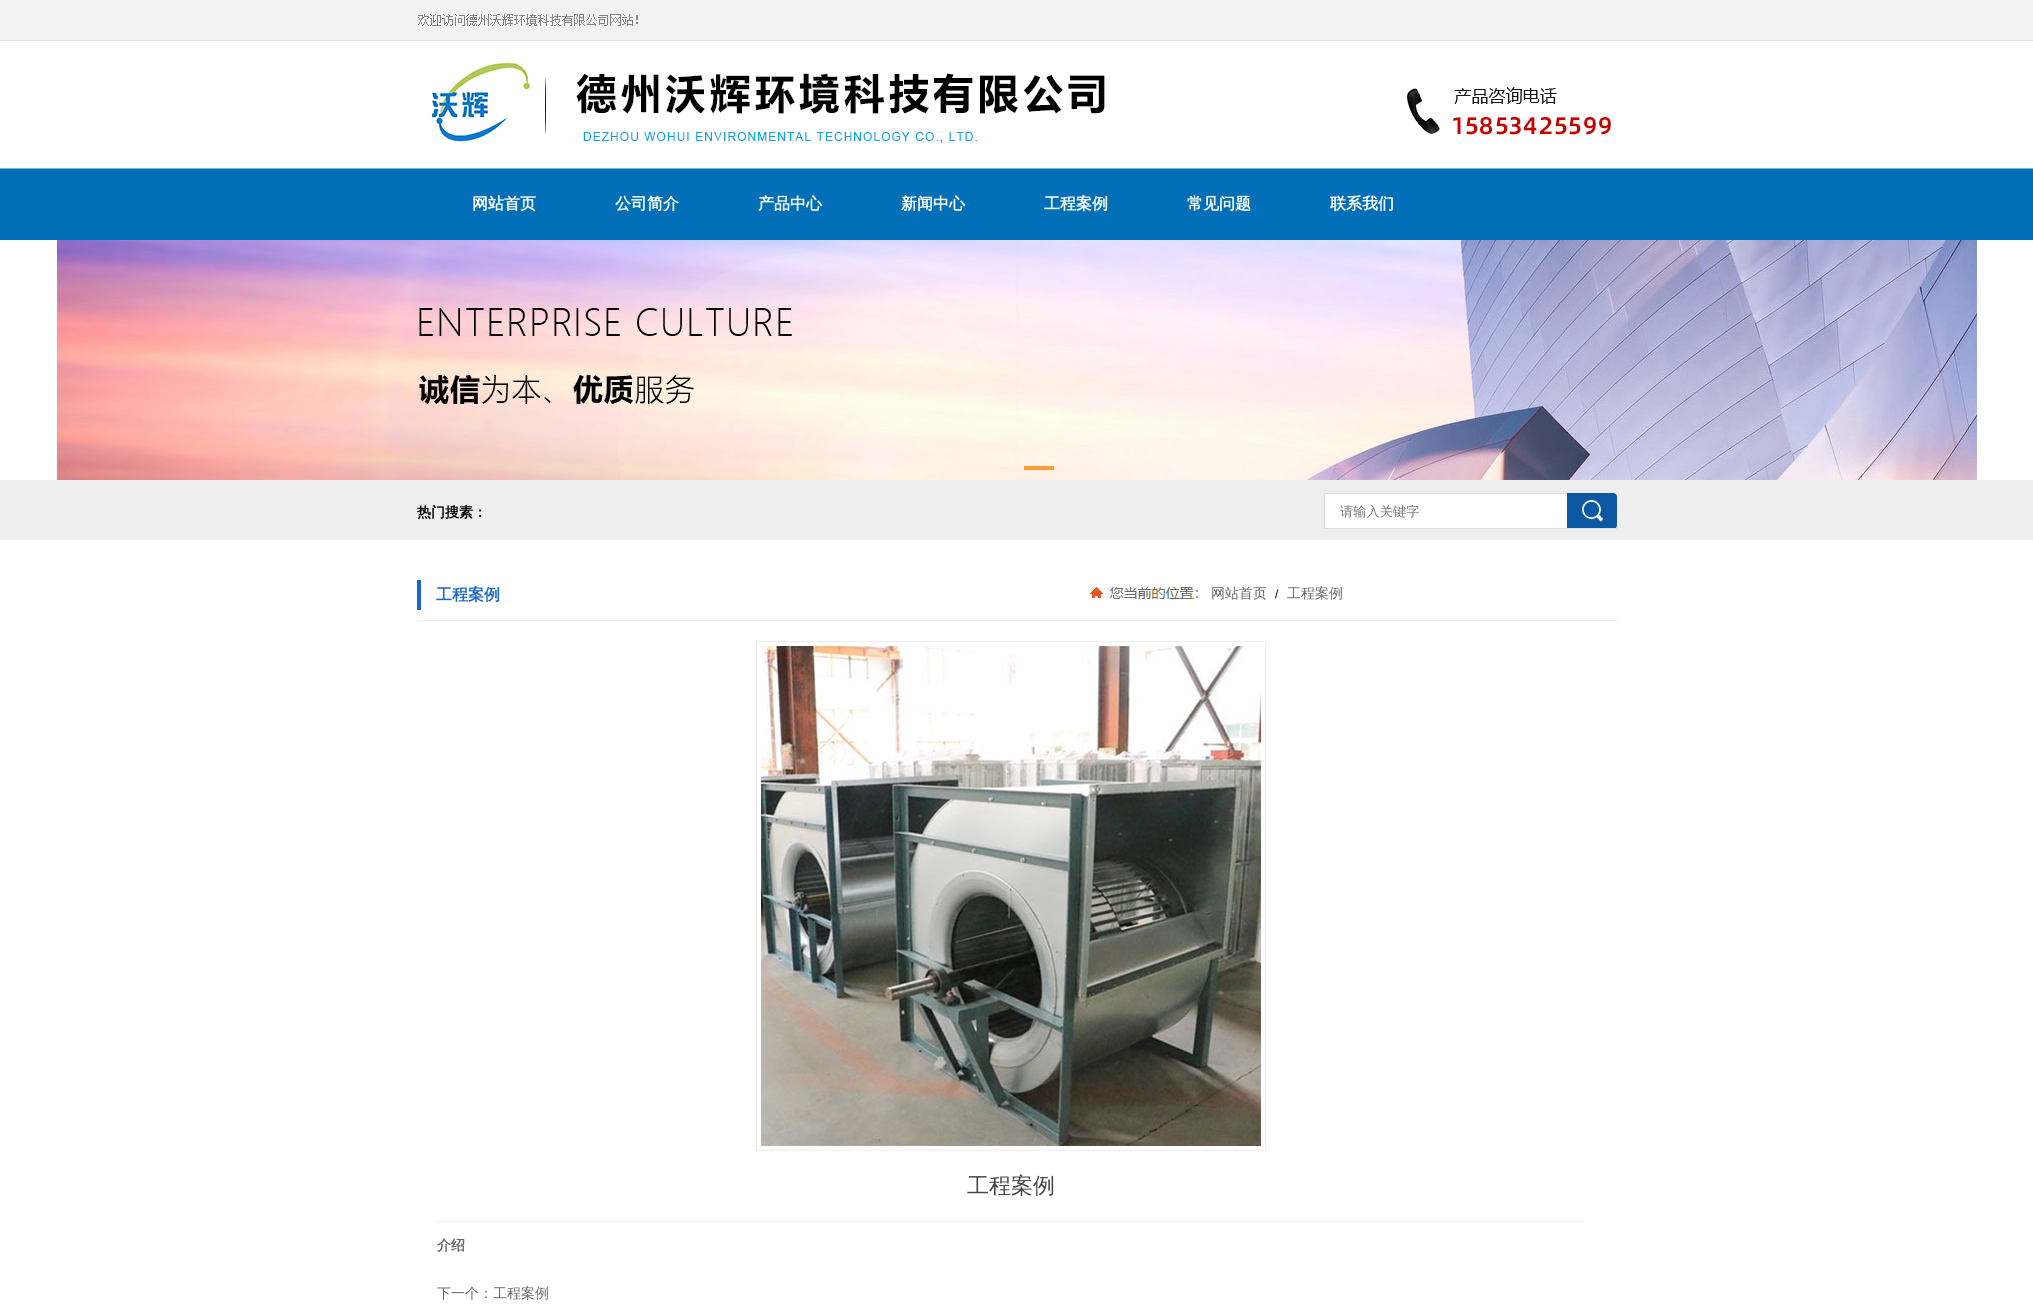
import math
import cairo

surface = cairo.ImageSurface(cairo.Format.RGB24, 2033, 1313)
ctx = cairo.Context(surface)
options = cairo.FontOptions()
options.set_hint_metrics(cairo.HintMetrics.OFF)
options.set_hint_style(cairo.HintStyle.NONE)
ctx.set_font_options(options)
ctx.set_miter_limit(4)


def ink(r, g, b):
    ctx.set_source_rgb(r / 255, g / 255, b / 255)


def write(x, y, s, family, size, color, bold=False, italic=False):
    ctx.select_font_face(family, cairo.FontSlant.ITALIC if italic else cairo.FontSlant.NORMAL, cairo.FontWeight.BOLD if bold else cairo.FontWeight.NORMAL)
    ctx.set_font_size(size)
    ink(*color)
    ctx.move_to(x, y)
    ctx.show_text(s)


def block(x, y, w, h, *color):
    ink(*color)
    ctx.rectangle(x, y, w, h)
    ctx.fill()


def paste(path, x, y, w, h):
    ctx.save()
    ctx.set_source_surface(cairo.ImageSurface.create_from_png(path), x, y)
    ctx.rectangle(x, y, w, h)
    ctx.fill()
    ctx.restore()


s1 = dict(family="WenQuanYi Zen Hei", size=16, color=(255, 255, 255), bold=True)
s2 = dict(family="WenQuanYi Zen Hei", size=14, color=(0, 0, 0), bold=True)
s3 = dict(family="WenQuanYi Zen Hei Medium", size=13.25, color=(117, 117, 117))
s4 = dict(family="WenQuanYi Zen Hei", size=16, color=(27, 103, 202), bold=True)
s5 = dict(family="WenQuanYi Zen Hei Medium", size=14, color=(102, 102, 102))
s6 = dict(family="Liberation Sans", size=12, color=(0, 0, 0))
s7 = dict(family="WenQuanYi Zen Hei Medium", size=22, color=(68, 68, 68))
s8 = dict(family="WenQuanYi Zen Hei", size=14, color=(102, 102, 102), bold=True)

ink(255, 255, 255)
ctx.paint()
paste("pic1.png", 0, 0, 2033, 240)
paste("pic2.png", 418, 14, 1193, 129)
write(472, 209, "网站首页", **s1)
write(615, 209, "公司简介", **s1)
write(758, 209, "产品中心", **s1)
write(901, 209, "新闻中心", **s1)
write(1044, 209, "工程案例", **s1)
write(1187, 209, "常见问题", **s1)
write(1330, 209, "联系我们", **s1)
paste("pic3.png", 57, 240, 1920, 240)
block(1024, 466, 30, 4, 255, 157, 52)
block(0, 480, 2033, 60, 238, 238, 238)
write(417, 517, "热门搜素：", **s2)
ink(255, 255, 255)
ctx.rectangle(1324.5, 493.5, 292, 35)
ctx.fill_preserve()
ink(221, 221, 221)
ctx.set_line_width(1)
ctx.stroke()
write(1340, 516, "请输入关键字", **s3)
paste("pic4.png", 1567, 493, 50, 35)
block(417, 620, 1200, 1, 238, 238, 238)
block(417, 580, 4, 30, 27, 103, 202)
write(436, 600, "工程案例", **s4)
paste("pic5.png", 1090, 587, 108, 12)
write(1211, 598, "网站首页", **s5)
write(1275, 598, "/", **s6)
write(1287, 598, "工程案例", **s5)
ctx.rectangle(756.5, 641.5, 509, 509)
ink(237, 237, 237)
ctx.stroke()
paste("pic6.png", 761, 646, 500, 500)
block(437, 1221, 1148, 1, 242, 242, 242)
write(967, 1193, "工程案例", **s7)
write(437, 1250, "介绍", **s8)
write(437, 1298, "下一个：工程案例", **s5)
surface.write_to_png("screenshot.png")
